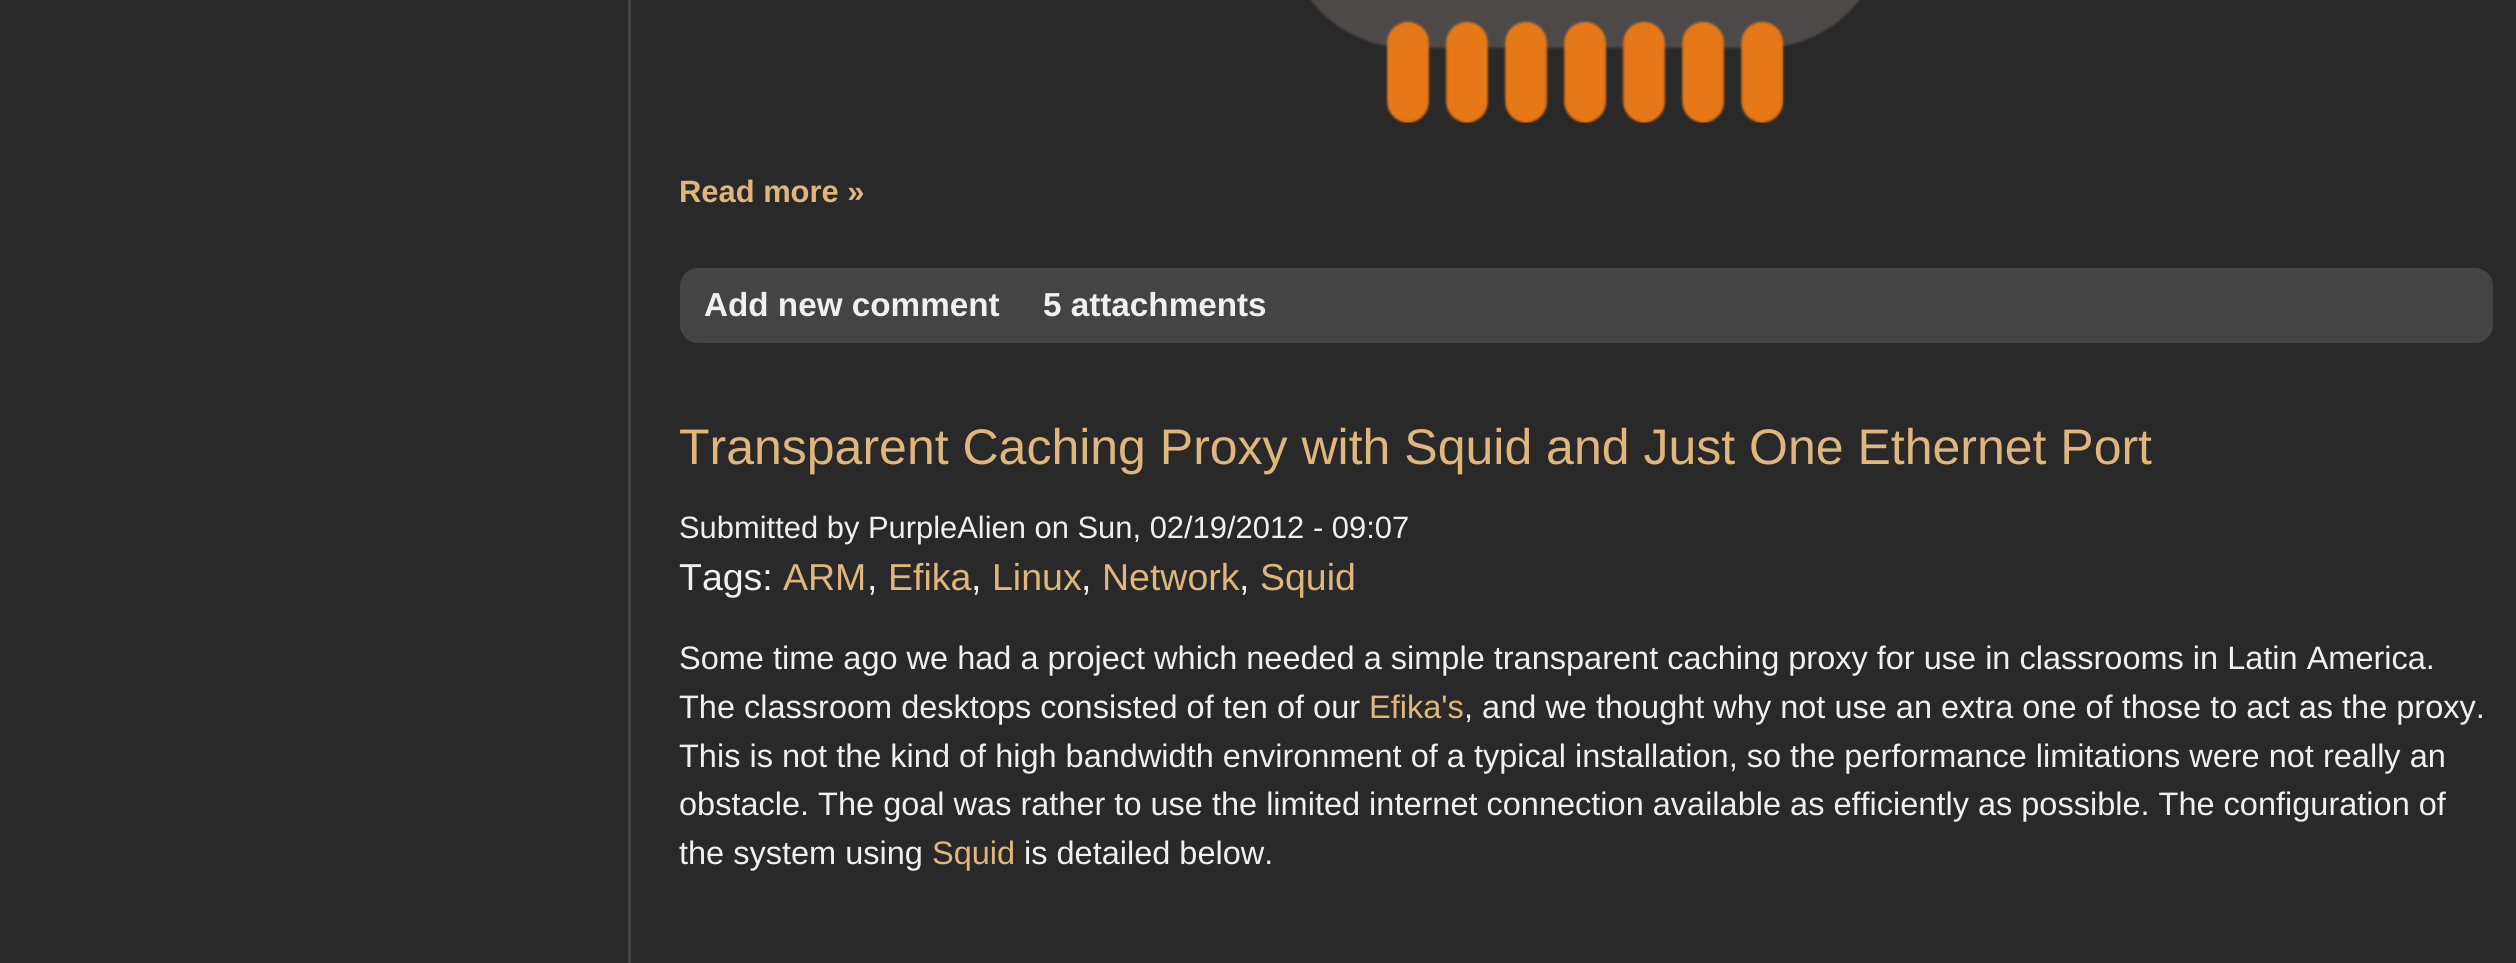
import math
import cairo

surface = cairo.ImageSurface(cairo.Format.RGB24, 2516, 963)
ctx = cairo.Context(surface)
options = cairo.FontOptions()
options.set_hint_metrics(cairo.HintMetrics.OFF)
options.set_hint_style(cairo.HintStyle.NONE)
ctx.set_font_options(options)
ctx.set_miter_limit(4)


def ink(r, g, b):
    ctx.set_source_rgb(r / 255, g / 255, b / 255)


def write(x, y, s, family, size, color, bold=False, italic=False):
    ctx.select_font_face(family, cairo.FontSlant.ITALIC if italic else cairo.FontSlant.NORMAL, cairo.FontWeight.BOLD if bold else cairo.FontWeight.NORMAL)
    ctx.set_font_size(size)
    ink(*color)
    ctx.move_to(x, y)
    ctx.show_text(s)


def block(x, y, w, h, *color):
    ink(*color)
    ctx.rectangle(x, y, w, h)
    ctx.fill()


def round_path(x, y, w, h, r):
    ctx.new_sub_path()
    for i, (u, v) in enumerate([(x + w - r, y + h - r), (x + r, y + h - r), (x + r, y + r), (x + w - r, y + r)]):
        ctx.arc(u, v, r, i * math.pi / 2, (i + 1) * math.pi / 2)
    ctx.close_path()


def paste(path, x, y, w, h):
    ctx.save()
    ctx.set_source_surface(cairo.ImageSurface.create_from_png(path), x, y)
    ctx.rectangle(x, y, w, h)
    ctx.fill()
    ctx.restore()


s1 = dict(family="Liberation Sans", size=30.9, color=(223, 183, 124), bold=True)
s2 = dict(family="Liberation Sans", size=33.25, color=(240, 240, 240), bold=True)
s3 = dict(family="Liberation Sans", size=50, color=(223, 183, 124))
s4 = dict(family="Liberation Sans", size=30.9, color=(240, 240, 240))
s5 = dict(family="Liberation Sans", size=37.5, color=(240, 240, 240))
s6 = dict(family="Liberation Sans", size=37.5, color=(223, 183, 124))
s7 = dict(family="Liberation Sans", size=32.5, color=(240, 240, 240))
s8 = dict(family="Liberation Sans", size=32.5, color=(223, 183, 124))

ink(41, 41, 41)
ctx.paint()
block(628, 0, 3, 963, 68, 68, 68)
paste("pic1.png", 1310, 0, 550, 123)
write(679, 202, "Read more »", **s1)
ink(68, 68, 68)
round_path(680, 268, 1813, 75, 18)
ctx.fill()
write(704, 316, "Add new comment", **s2)
write(1043, 316, "5 attachments", **s2)
write(679, 464, "Transparent Caching Proxy with Squid and Just One Ethernet Port", **s3)
write(679, 538, "Submitted by PurpleAlien on Sun, 02/19/2012 - 09:07", **s4)
write(679, 590, "Tags:", **s5)
write(783, 590, "ARM", **s6)
write(867, 590, ",", **s5)
write(888, 590, "Efika", **s6)
write(971, 590, ",", **s5)
write(992, 590, "Linux", **s6)
write(1081, 590, ",", **s5)
write(1102, 590, "Network", **s6)
write(1239, 590, ",", **s5)
write(1260, 590, "Squid", **s6)
write(679, 669, "Some time ago we had a project which needed a simple transparent caching proxy for use in classrooms in Latin America.", **s7)
write(679, 718, "The classroom desktops consisted of ten of our", **s7)
write(1369, 718, "Efika's", **s8)
write(1464, 718, ", and we thought why not use an extra one of those to act as the proxy.", **s7)
write(679, 767, "This is not the kind of high bandwidth environment of a typical installation, so the performance limitations were not really an", **s7)
write(679, 815, "obstacle. The goal was rather to use the limited internet connection available as efficiently as possible. The configuration of", **s7)
write(679, 864, "the system using", **s7)
write(932, 864, "Squid", **s8)
write(1024, 864, "is detailed below.", **s7)
surface.write_to_png("screenshot.png")
